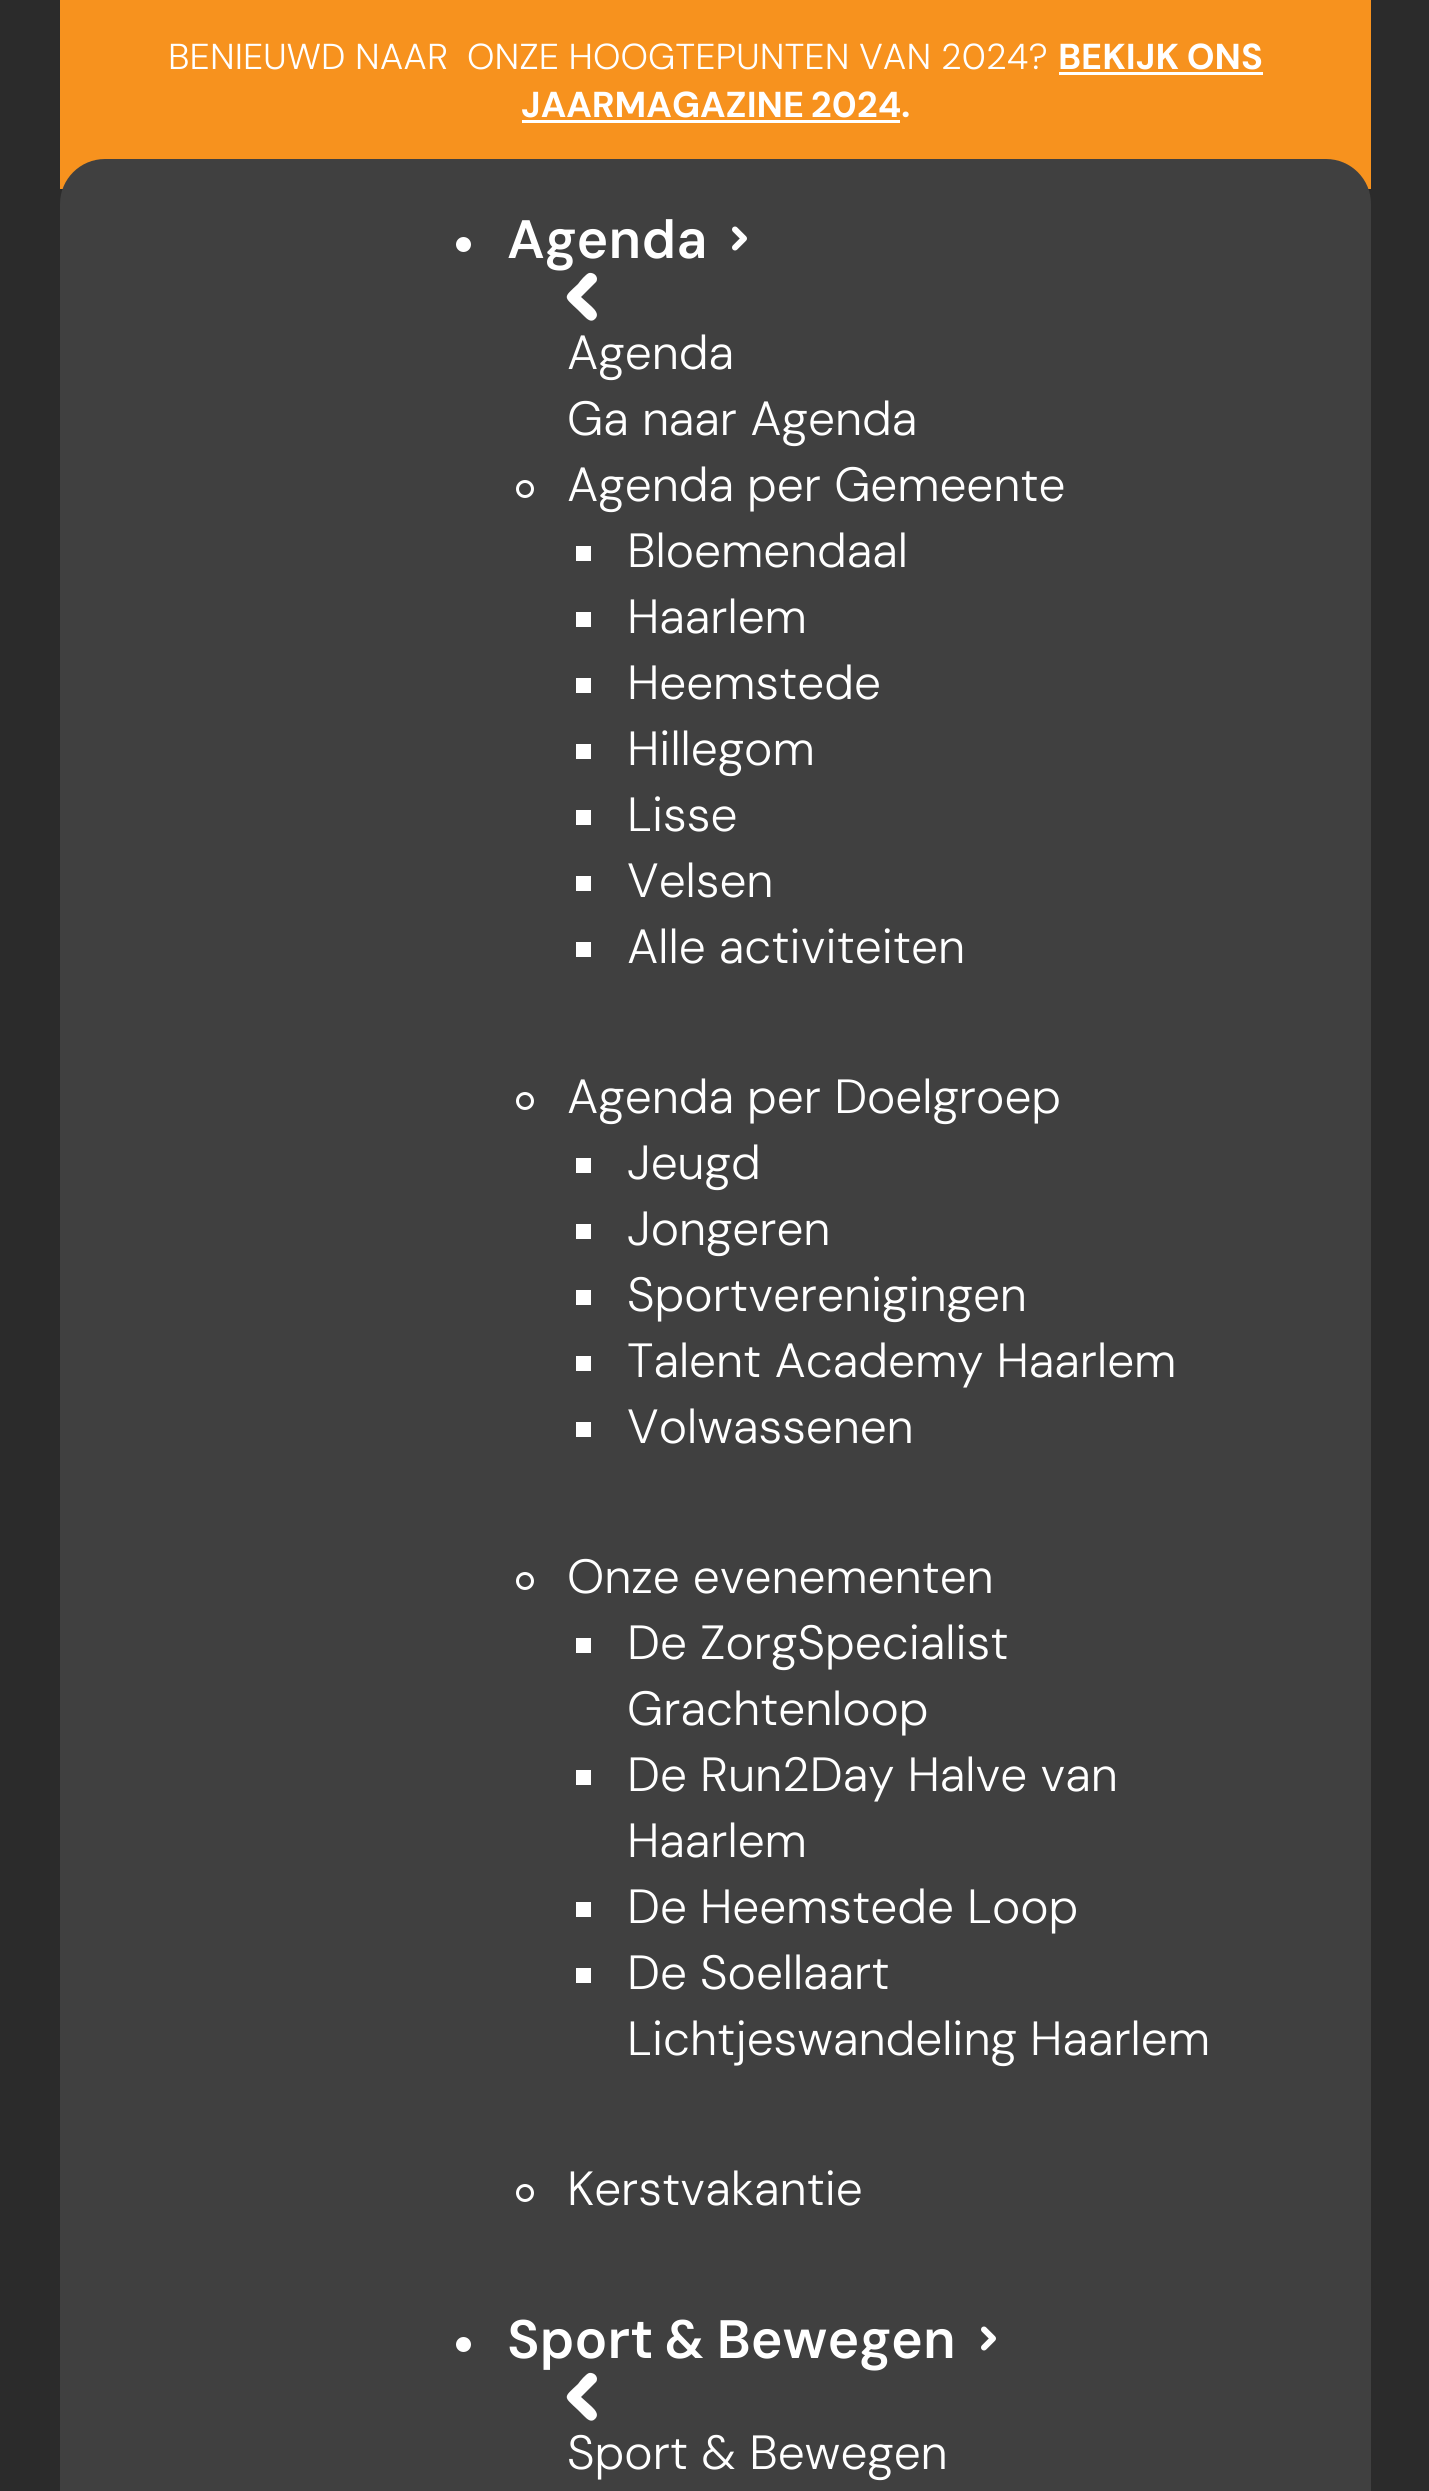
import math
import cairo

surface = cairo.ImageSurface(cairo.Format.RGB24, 1429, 2491)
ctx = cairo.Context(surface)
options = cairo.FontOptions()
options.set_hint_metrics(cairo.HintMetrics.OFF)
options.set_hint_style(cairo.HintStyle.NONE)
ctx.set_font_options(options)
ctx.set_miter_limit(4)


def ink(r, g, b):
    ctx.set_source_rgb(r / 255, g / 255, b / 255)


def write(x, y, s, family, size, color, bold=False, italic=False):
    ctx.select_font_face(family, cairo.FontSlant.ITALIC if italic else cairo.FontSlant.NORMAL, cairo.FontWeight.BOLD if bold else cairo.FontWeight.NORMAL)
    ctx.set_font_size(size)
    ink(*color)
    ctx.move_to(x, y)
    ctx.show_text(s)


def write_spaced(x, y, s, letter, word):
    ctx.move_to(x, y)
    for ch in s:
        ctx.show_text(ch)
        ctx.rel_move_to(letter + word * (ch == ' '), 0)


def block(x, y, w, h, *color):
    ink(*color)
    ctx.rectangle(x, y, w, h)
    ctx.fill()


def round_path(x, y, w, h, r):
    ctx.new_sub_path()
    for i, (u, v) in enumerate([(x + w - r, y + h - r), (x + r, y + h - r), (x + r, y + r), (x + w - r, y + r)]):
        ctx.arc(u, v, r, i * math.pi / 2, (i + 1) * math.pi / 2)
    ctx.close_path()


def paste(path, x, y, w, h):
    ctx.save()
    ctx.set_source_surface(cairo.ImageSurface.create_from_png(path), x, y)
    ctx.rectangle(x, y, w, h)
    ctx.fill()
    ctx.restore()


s1 = dict(family="DM Sans", size=36, color=(255, 255, 255), bold=True)
s2 = dict(family="DM Sans SemiBold", size=54, color=(255, 255, 255))
s3 = dict(family="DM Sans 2 Light", size=48, color=(255, 255, 255))

ink(43, 43, 43)
ctx.paint()
block(60, 0, 1311, 189, 247, 146, 30)
ctx.select_font_face("DM Sans Light")
ctx.set_font_size(36)
ink(255, 255, 255)
write_spaced(168, 69, "BENIEUWD NAAR  ONZE HOOGTEPUNTEN VAN 2024?", 0, -0.5)
ctx.select_font_face("DM Sans", cairo.FontSlant.NORMAL, cairo.FontWeight.BOLD)
write_spaced(1058, 69, "BEKIJK ONS", 0, -1)
block(1059, 72, 204, 3, 255, 255, 255)
write_spaced(521, 117, "JAARMAGAZINE 2024", 0, -2)
write(901, 117, ".", **s1)
block(522, 120, 378, 3, 255, 255, 255)
ink(64, 64, 64)
round_path(60, 159, 1311, 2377, 45)
ctx.fill()
ink(255, 255, 255)
ctx.arc(463.5, 244.5, 7.5, 0, 2 * math.pi)
ctx.fill()
write(507, 258, "Agenda", **s2)
paste("pic1.png", 732, 226, 15, 25)
ctx.new_path()
ctx.move_to(595, 319)
ctx.curve_to(600, 314, 594, 309, 591, 306)
ctx.line_to(581, 297)
ctx.line_to(596, 282)
ctx.curve_to(599, 278, 595, 272, 589, 273)
ctx.curve_to(586, 274, 580, 281, 578, 284)
ctx.curve_to(563, 298, 563, 296, 578, 310)
ctx.line_to(584, 316)
ctx.curve_to(587, 319, 591, 323, 595, 319)
ctx.close_path()
ctx.fill()
write(567, 369, "Agenda", **s3)
write(567, 435, "Ga naar Agenda", **s3)
ctx.new_path()
ctx.arc(525, 489, 7.5, 0, 2 * math.pi)
ctx.set_line_width(3)
ctx.stroke()
write(567, 501, "Agenda per Gemeente", **s3)
block(576, 546, 15, 15, 255, 255, 255)
write(627, 567, "Bloemendaal", **s3)
block(576, 612, 15, 15, 255, 255, 255)
write(627, 633, "Haarlem", **s3)
block(576, 678, 15, 15, 255, 255, 255)
write(627, 699, "Heemstede", **s3)
block(576, 744, 15, 15, 255, 255, 255)
write(627, 765, "Hillegom", **s3)
block(576, 810, 15, 15, 255, 255, 255)
write(627, 831, "Lisse", **s3)
block(576, 876, 15, 15, 255, 255, 255)
write(627, 897, "Velsen", **s3)
block(576, 942, 15, 15, 255, 255, 255)
write(627, 963, "Alle activiteiten", **s3)
ctx.new_path()
ctx.arc(525, 1101, 7.5, 0, 2 * math.pi)
ctx.stroke()
write(567, 1113, "Agenda per Doelgroep", **s3)
block(576, 1158, 15, 15, 255, 255, 255)
write(627, 1179, "Jeugd", **s3)
block(576, 1224, 15, 15, 255, 255, 255)
write(627, 1245, "Jongeren", **s3)
block(576, 1290, 15, 15, 255, 255, 255)
write(627, 1311, "Sportverenigingen", **s3)
block(576, 1356, 15, 15, 255, 255, 255)
write(627, 1377, "Talent Academy Haarlem", **s3)
block(576, 1422, 15, 15, 255, 255, 255)
write(627, 1443, "Volwassenen", **s3)
ctx.new_path()
ctx.arc(525, 1581, 7.5, 0, 2 * math.pi)
ctx.stroke()
write(567, 1593, "Onze evenementen", **s3)
block(576, 1638, 15, 15, 255, 255, 255)
write(627, 1659, "De ZorgSpecialist", **s3)
write(627, 1725, "Grachtenloop", **s3)
block(576, 1770, 15, 15, 255, 255, 255)
write(627, 1791, "De Run2Day Halve van", **s3)
write(627, 1857, "Haarlem", **s3)
block(576, 1902, 15, 15, 255, 255, 255)
write(627, 1923, "De Heemstede Loop", **s3)
block(576, 1968, 15, 15, 255, 255, 255)
write(627, 1989, "De Soellaart", **s3)
write(627, 2055, "Lichtjeswandeling Haarlem", **s3)
ctx.new_path()
ctx.arc(525, 2193, 7.5, 0, 2 * math.pi)
ctx.stroke()
write(567, 2205, "Kerstvakantie", **s3)
ctx.new_path()
ctx.arc(463.5, 2344.5, 7.5, 0, 2 * math.pi)
ctx.fill()
ctx.select_font_face("DM Sans SemiBold")
ctx.set_font_size(54)
write_spaced(507, 2358, "Sport & Bewegen", 0, -3)
paste("pic1.png", 981, 2326, 15, 25)
ctx.new_path()
ctx.move_to(595, 2419)
ctx.curve_to(600, 2414, 594, 2409, 591, 2406)
ctx.line_to(581, 2397)
ctx.line_to(596, 2382)
ctx.curve_to(599, 2378, 595, 2372, 589, 2373)
ctx.curve_to(586, 2374, 580, 2381, 578, 2384)
ctx.curve_to(563, 2398, 563, 2396, 578, 2410)
ctx.line_to(584, 2416)
ctx.curve_to(587, 2419, 591, 2423, 595, 2419)
ctx.close_path()
ctx.fill()
write(567, 2469, "Sport & Bewegen", **s3)
surface.write_to_png("screenshot.png")
